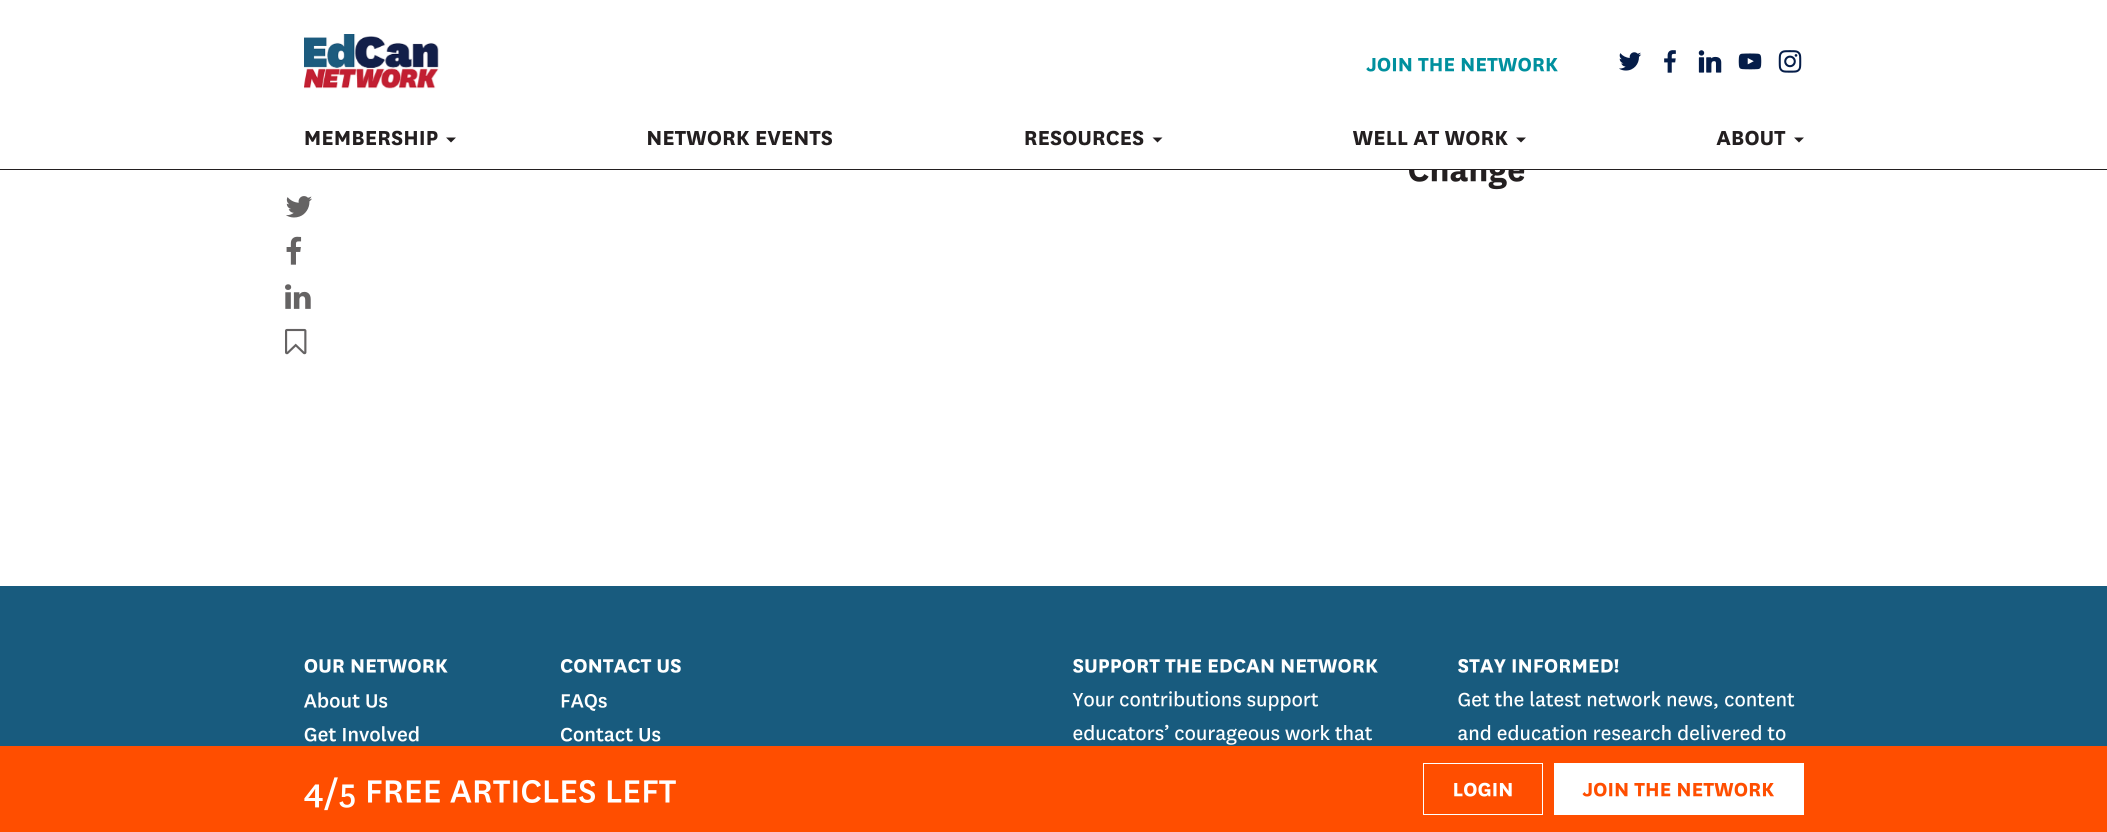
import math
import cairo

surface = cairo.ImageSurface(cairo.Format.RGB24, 2107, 832)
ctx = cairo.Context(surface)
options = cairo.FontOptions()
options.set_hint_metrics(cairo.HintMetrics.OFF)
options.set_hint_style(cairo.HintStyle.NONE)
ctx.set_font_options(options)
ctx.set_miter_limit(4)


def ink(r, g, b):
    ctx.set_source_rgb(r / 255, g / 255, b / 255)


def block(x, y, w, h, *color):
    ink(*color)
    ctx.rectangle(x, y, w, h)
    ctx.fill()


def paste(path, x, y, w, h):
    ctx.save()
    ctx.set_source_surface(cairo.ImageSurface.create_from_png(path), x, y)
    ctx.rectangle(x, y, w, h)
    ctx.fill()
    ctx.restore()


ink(255, 255, 255)
ctx.paint()
block(0, 169, 2107, 1, 35, 31, 32)
paste("pic1.png", 304, 34, 135, 55)
paste("pic2.png", 1366, 57, 192, 15)
paste("pic3.png", 1619, 52, 23, 19)
paste("pic4.png", 1664, 50, 12, 23)
paste("pic5.png", 1698, 50, 24, 23)
paste("pic6.png", 1738, 53, 24, 17)
paste("pic7.png", 1778, 50, 24, 23)
paste("pic8.png", 305, 130, 133, 16)
ctx.new_path()
ctx.move_to(446, 137.5)
ctx.line_to(456, 137.5)
ctx.line_to(451, 142.5)
ctx.close_path()
ctx.fill()
paste("pic9.png", 648, 130, 184, 16)
paste("pic10.png", 1025, 130, 119, 16)
ctx.new_path()
ctx.move_to(1152.5, 137.5)
ctx.line_to(1162.5, 137.5)
ctx.line_to(1157.5, 142.5)
ctx.close_path()
ctx.fill()
paste("pic11.png", 1353, 130, 155, 16)
ctx.new_path()
ctx.move_to(1516, 137.5)
ctx.line_to(1526, 137.5)
ctx.line_to(1521, 142.5)
ctx.close_path()
ctx.fill()
paste("pic12.png", 1716, 130, 70, 16)
ctx.new_path()
ctx.move_to(1794, 137.5)
ctx.line_to(1804, 137.5)
ctx.line_to(1799, 142.5)
ctx.close_path()
ctx.fill()
paste("pic13.png", 1409, 170, 116, 20)
paste("pic14.png", 286, 196, 26, 22)
paste("pic15.png", 286, 236, 16, 29)
paste("pic16.png", 285, 284, 26, 25)
paste("pic17.png", 285, 328, 22, 27)
block(0, 586, 2107, 160, 24, 91, 126)
paste("pic18.png", 304, 659, 144, 14)
paste("pic19.png", 304, 692, 84, 16)
paste("pic20.png", 304, 726, 115, 16)
paste("pic21.png", 560, 659, 121, 14)
paste("pic22.png", 561, 694, 46, 17)
paste("pic23.png", 561, 727, 100, 15)
paste("pic24.png", 1073, 659, 305, 14)
paste("pic25.png", 1072, 691, 247, 20)
paste("pic26.png", 1073, 724, 299, 21)
paste("pic27.png", 1458, 659, 161, 14)
paste("pic28.png", 1458, 691, 337, 18)
paste("pic29.png", 1458, 724, 328, 17)
block(0, 746, 2107, 86, 255, 78, 0)
paste("pic30.png", 304, 784, 19, 24)
paste("pic31.png", 324, 777, 31, 34)
paste("pic32.png", 368, 779, 308, 24)
ctx.rectangle(1423.5, 763.5, 119, 51)
ink(255, 255, 255)
ctx.set_line_width(1)
ctx.stroke()
paste("pic33.png", 1454, 782, 58, 15)
block(1554, 763, 250, 52, 255, 255, 255)
paste("pic34.png", 1582, 782, 192, 15)
surface.write_to_png("screenshot.png")
